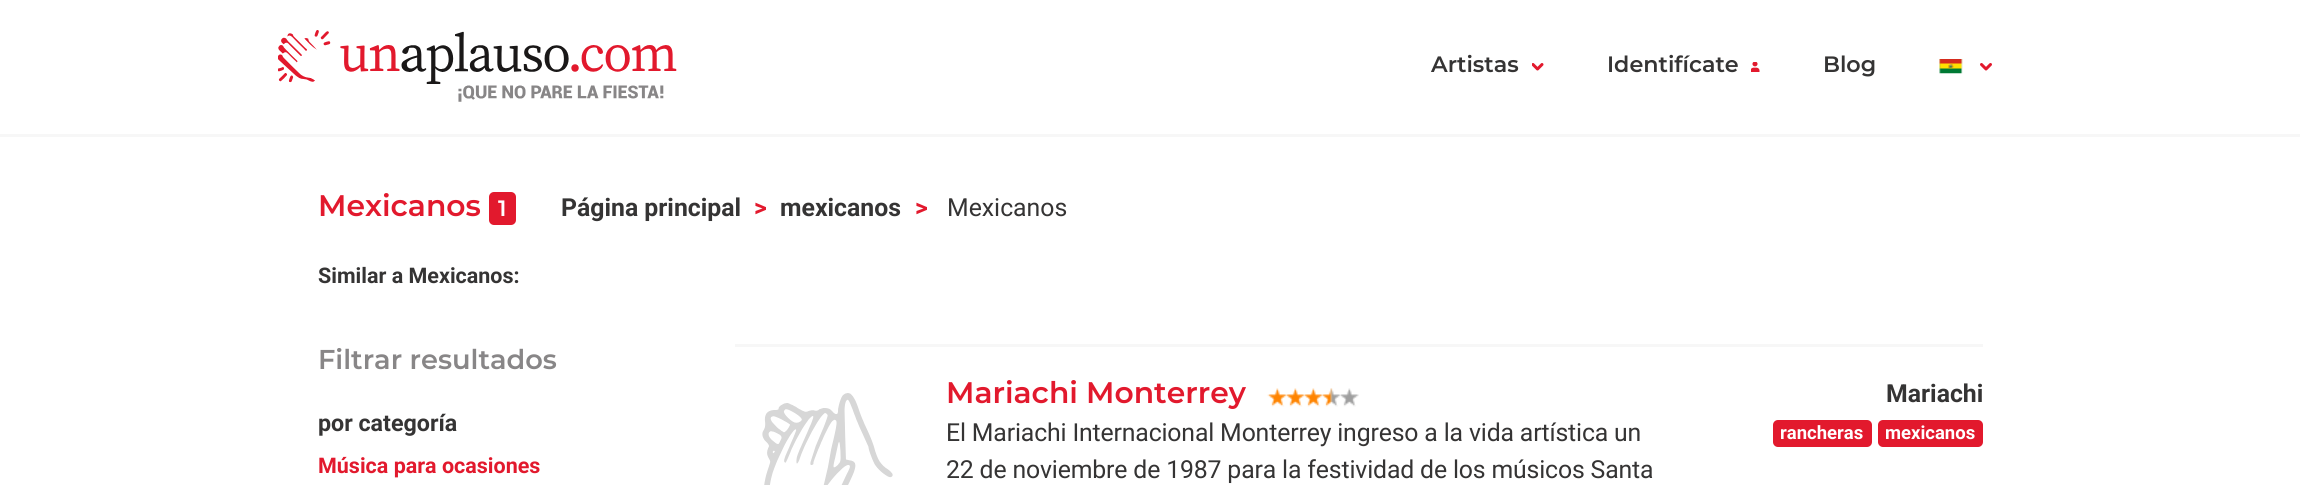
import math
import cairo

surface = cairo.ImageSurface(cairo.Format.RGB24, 2300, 485)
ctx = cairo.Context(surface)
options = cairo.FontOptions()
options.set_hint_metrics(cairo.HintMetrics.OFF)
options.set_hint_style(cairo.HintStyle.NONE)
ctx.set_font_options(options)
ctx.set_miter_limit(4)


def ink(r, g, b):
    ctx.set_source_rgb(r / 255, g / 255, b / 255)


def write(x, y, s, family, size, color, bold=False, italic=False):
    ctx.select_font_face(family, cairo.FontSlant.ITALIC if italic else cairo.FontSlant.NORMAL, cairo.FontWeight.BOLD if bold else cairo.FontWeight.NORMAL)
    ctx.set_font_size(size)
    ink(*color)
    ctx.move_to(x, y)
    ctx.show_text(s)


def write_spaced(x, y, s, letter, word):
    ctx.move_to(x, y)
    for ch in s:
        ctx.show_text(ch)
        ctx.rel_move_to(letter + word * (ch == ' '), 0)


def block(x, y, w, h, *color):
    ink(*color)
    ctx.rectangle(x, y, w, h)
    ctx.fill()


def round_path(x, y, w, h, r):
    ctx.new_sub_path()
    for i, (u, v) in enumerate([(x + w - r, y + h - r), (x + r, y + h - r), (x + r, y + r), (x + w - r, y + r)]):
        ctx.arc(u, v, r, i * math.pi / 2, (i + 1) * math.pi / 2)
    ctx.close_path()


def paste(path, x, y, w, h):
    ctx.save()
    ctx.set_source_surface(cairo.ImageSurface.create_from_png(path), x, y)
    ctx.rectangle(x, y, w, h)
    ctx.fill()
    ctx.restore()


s1 = dict(family="Montserrat SemiBold", size=22.25, color=(53, 52, 52))
s2 = dict(family="Montserrat SemiBold", size=29.75, color=(226, 25, 45))
s3 = dict(family="Montserrat SemiBold", size=22.25, color=(255, 255, 255))
s4 = dict(family="Roboto", size=24.8, color=(53, 52, 52), bold=True)
s5 = dict(family="Roboto", size=24.8, color=(226, 25, 45), bold=True)
s6 = dict(family="Roboto", size=24.8, color=(53, 52, 52))
s7 = dict(family="Roboto", size=21.5, color=(53, 52, 52), bold=True)
s8 = dict(family="Montserrat SemiBold", size=27.25, color=(136, 134, 135))
s9 = dict(family="Roboto", size=23.25, color=(53, 52, 52), bold=True)
s10 = dict(family="Roboto", size=21.5, color=(226, 25, 45), bold=True)
s11 = dict(family="Roboto", size=18.5, color=(255, 255, 255), bold=True)

ink(255, 255, 255)
ctx.paint()
block(0, 134, 2300, 3, 247, 247, 247)
paste("pic1.png", 278, 30, 399, 72)
write(1431, 72, "Artistas", **s1)
ctx.save()
ctx.rectangle(1532, 63, 12, 8)
ctx.clip()
ctx.new_path()
ctx.move_to(1542, 64.5)
ctx.line_to(1537.5, 69)
ctx.line_to(1533, 64.5)
ink(226, 25, 45)
ctx.set_line_width(3)
ctx.set_line_cap(cairo.LineCap.ROUND)
ctx.set_line_join(cairo.LineJoin.ROUND)
ctx.stroke()
ctx.restore()
write(1607, 72, "Identifícate", **s1)
paste("pic2.png", 1751, 62, 9, 10)
write(1823, 72, "Blog", **s1)
paste("pic3.png", 1939, 59, 24, 15)
ctx.new_path()
ctx.move_to(1990.5, 64.5)
ctx.line_to(1986, 69)
ctx.line_to(1981.5, 64.5)
ink(226, 25, 45)
ctx.set_line_width(3)
ctx.set_line_cap(cairo.LineCap.ROUND)
ctx.set_line_join(cairo.LineJoin.ROUND)
ctx.stroke()
write(318, 216, "Mexicanos", **s2)
round_path(489, 192, 27, 33, 5)
ctx.fill()
write(498, 216, "1", **s3)
write(561, 216, "Página principal", **s4)
write(754, 216, ">", **s5)
write(780, 216, "mexicanos", **s4)
write(915, 216, ">", **s5)
write(947, 216, "Mexicanos", **s6)
write(318, 283, "Similar a Mexicanos:", **s7)
write(318, 369, "Filtrar resultados", **s8)
write(318, 431, "por categoría", **s9)
write(318, 473, "Música para ocasiones", **s10)
block(735, 344, 1248, 3, 247, 247, 247)
paste("pic4.png", 762, 393, 131, 92)
write(946, 403, "Mariachi Monterrey", **s2)
paste("pic5.png", 1267, 388, 92, 19)
ctx.select_font_face("Roboto")
ctx.set_font_size(24.8)
ink(53, 52, 52)
write_spaced(946, 441, "El Mariachi Internacional Monterrey ingreso a la vida artística un", -0.15, 0)
write_spaced(946, 478, "22 de noviembre de 1987 para la festividad de los músicos Santa", -0.15, 0)
write(1886, 402, "Mariachi", **s4)
ink(226, 25, 45)
round_path(1773, 420, 99, 27, 5)
ctx.fill()
write(1780, 439, "rancheras", **s11)
ink(226, 25, 45)
round_path(1878, 420, 105, 27, 5)
ctx.fill()
write(1885, 439, "mexicanos", **s11)
surface.write_to_png("screenshot.png")
